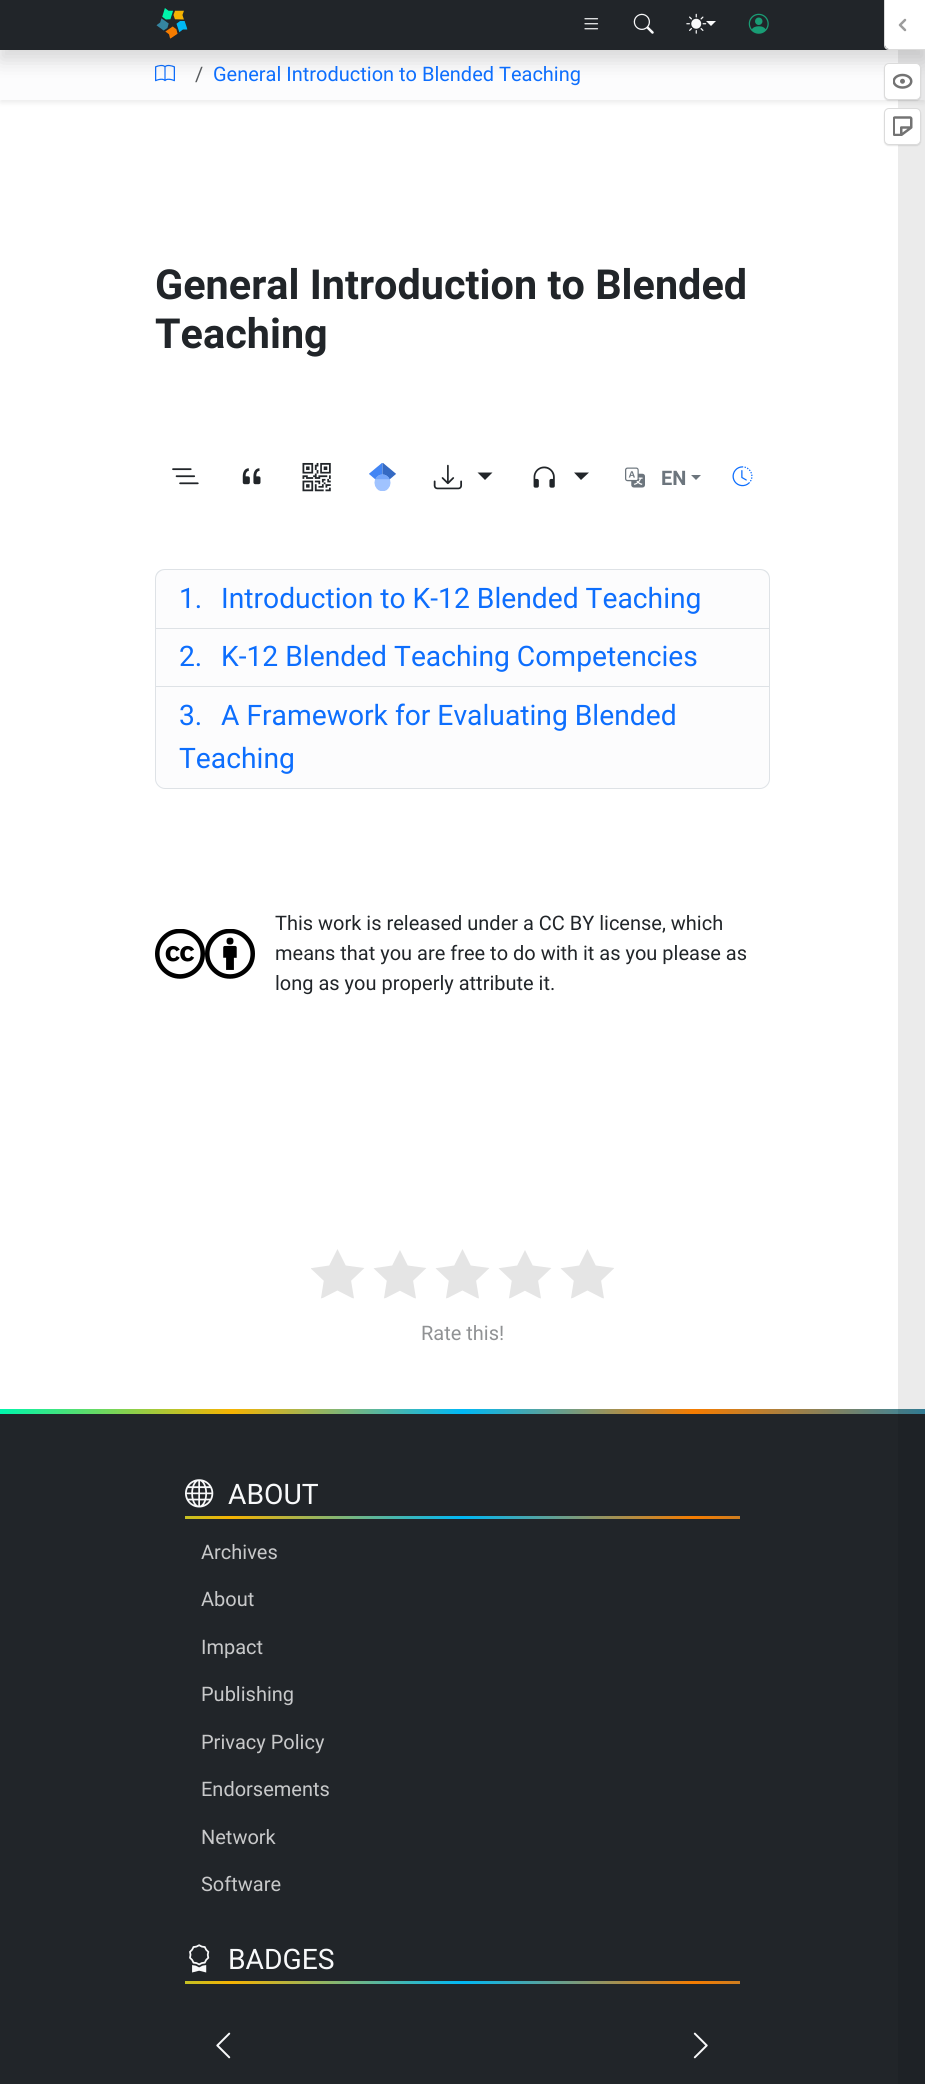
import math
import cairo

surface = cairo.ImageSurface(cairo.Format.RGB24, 925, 2084)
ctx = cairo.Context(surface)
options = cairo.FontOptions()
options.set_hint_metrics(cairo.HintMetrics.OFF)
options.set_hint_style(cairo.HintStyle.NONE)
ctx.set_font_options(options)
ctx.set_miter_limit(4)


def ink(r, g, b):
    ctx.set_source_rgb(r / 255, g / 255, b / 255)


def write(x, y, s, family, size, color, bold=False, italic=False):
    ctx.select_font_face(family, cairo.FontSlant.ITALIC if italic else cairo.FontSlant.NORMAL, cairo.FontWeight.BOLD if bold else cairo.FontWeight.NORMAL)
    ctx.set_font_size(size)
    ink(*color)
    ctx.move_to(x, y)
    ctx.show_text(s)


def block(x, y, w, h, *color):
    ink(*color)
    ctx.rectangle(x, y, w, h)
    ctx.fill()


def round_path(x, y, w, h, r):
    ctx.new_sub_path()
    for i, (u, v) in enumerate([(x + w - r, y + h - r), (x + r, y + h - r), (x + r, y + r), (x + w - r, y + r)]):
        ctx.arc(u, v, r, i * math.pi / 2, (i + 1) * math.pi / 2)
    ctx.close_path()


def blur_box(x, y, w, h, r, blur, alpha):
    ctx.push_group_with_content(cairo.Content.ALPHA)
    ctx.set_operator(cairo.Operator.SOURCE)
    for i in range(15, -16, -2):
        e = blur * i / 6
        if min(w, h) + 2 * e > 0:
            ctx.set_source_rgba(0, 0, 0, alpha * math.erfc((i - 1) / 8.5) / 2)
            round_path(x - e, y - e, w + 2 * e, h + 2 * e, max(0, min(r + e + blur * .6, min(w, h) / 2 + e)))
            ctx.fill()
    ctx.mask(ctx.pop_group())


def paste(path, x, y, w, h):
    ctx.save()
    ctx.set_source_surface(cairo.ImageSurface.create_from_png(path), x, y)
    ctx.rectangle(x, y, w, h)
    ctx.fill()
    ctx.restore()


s1 = dict(family="Roboto", size=20, color=(88, 91, 94))
s2 = dict(family="Roboto", size=20, color=(13, 110, 253))
s3 = dict(family="Roboto", size=41.4, color=(33, 37, 41), bold=True)
s4 = dict(family="Roboto", size=20, color=(108, 117, 125), bold=True)
s5 = dict(family="Roboto", size=28.25, color=(13, 110, 253))
s6 = dict(family="Roboto", size=20, color=(33, 37, 41))
s7 = dict(family="Roboto", size=20, color=(144, 146, 148))
s8 = dict(family="Roboto", size=28.25, color=(248, 249, 250))
s9 = dict(family="Roboto", size=20, color=(200, 201, 202))

ink(255, 255, 255)
ctx.paint()
ink(0, 0, 0)
blur_box(0, 53, 925, 50, 0, 2.5, 0.07)
block(0, 51, 925, 49, 252, 252, 253)
paste("pic6.png", 155, 64, 20, 18)
ink(0, 0, 0)
blur_box(0, 10, 925, 50, 0, 10, 0.15)
block(0, 0, 889, 50, 33, 37, 41)
paste("pic1.png", 156, 8, 32, 31)
paste("pic2.png", 584, 18, 15, 12)
paste("pic3.png", 633, 13, 21, 21)
paste("pic4.png", 686, 13, 21, 21)
ink(248, 249, 250)
ctx.new_path()
ctx.move_to(706, 21)
ctx.line_to(716, 21)
ctx.line_to(711, 26)
ctx.close_path()
ctx.fill()
paste("pic5.png", 748, 13, 21, 21)
write(195, 81, "/", **s1)
write(213, 81, "General Introduction to Blended Teaching", **s2)
write(155, 299, "General Introduction to Blended", **s3)
write(155, 348, "Teaching", **s3)
paste("pic7.png", 172, 468, 27, 17)
paste("pic8.png", 242, 468, 19, 17)
paste("pic9.png", 302, 462, 29, 30)
paste("pic10.png", 369, 463, 27, 28)
paste("pic11.png", 433, 464, 30, 26)
ctx.new_path()
ctx.move_to(477.5, 472.5)
ctx.line_to(492.5, 472.5)
ctx.line_to(485, 480)
ctx.close_path()
ctx.fill()
paste("pic12.png", 533, 466, 22, 22)
ctx.new_path()
ctx.move_to(574, 472.5)
ctx.line_to(589, 472.5)
ctx.line_to(581, 480)
ctx.close_path()
ctx.fill()
paste("pic13.png", 625, 467, 20, 21)
write(661, 485, "EN", **s4)
ctx.new_path()
ctx.move_to(691, 475)
ctx.line_to(701, 475)
ctx.line_to(696, 480)
ctx.close_path()
ctx.fill()
paste("pic14.png", 732, 466, 21, 21)
ink(252, 252, 253)
ctx.new_path()
ctx.move_to(165, 570)
ctx.line_to(760, 570)
ctx.curve_to(765, 570, 769, 574, 769, 579)
ctx.line_to(769, 628)
ctx.line_to(156, 628)
ctx.line_to(156, 579)
ctx.curve_to(156, 574, 160, 570, 165, 570)
ctx.close_path()
ctx.fill()
ink(222, 226, 230)
ctx.set_fill_rule(cairo.FillRule.EVEN_ODD)
ctx.new_path()
ctx.move_to(165, 569)
ctx.line_to(760, 569)
ctx.curve_to(766, 569, 770, 573, 770, 579)
ctx.line_to(770, 628)
ctx.line_to(155, 628)
ctx.line_to(155, 579)
ctx.curve_to(155, 573, 159, 569, 165, 569)
ctx.close_path()
ctx.move_to(165, 570)
ctx.line_to(760, 570)
ctx.curve_to(765, 570, 769, 574, 769, 579)
ctx.line_to(769, 628)
ctx.line_to(156, 628)
ctx.line_to(156, 579)
ctx.curve_to(156, 574, 160, 570, 165, 570)
ctx.close_path()
ctx.fill()
write(179, 608, "1.", **s5)
write(221, 608, "Introduction to K-12 Blended Teaching", **s5)
block(156, 629, 613, 57, 252, 252, 253)
block(155, 628, 615, 1, 222, 226, 230)
block(769, 628, 1, 58, 222, 226, 230)
block(155, 628, 1, 58, 222, 226, 230)
write(179, 666, "2.", **s5)
write(221, 666, "K-12 Blended Teaching Competencies", **s5)
ink(252, 252, 253)
ctx.new_path()
ctx.move_to(155.5, 686.5)
ctx.line_to(769.5, 686.5)
ctx.line_to(769.5, 779)
ctx.curve_to(769.5, 784, 765, 788.5, 760, 788.5)
ctx.line_to(165, 788.5)
ctx.curve_to(160, 788.5, 155.5, 784, 155.5, 779)
ctx.close_path()
ctx.fill_preserve()
ink(222, 226, 230)
ctx.set_line_width(1)
ctx.stroke()
write(179, 725, "3.", **s5)
write(221, 725, "A Framework for Evaluating Blended", **s5)
write(179, 768, "Teaching", **s5)
paste("pic15.png", 155, 929, 50, 50)
paste("pic16.png", 205, 929, 50, 50)
write(275, 930, "This work is released under a CC BY license, which", **s6)
write(275, 960, "means that you are free to do with it as you please as", **s6)
write(275, 990, "long as you properly attribute it.", **s6)
paste("pic17.png", 311, 1249, 303, 50)
write(421, 1340, "Rate this!", **s7)
gradient = cairo.LinearGradient(0, 1043, 925, 1043)
gradient.add_color_stop_rgba(0, 0, 0.961, 0.675, 1)
gradient.add_color_stop_rgba(0.25, 0.961, 0.702, 0.008, 1)
gradient.add_color_stop_rgba(0.5, 0, 0.722, 0.961, 1)
gradient.add_color_stop_rgba(0.75, 0.961, 0.486, 0, 1)
gradient.add_color_stop_rgba(1, 0.208, 0.522, 0.627, 1)
ctx.set_source(gradient)
ctx.rectangle(0, 1409, 925, 5)
ctx.fill()
block(0, 1414, 925, 670, 33, 37, 41)
paste("pic18.png", 185, 1479, 29, 29)
write(228, 1504, "ABOUT", **s8)
gradient = cairo.LinearGradient(0, 1043, 925, 1043)
gradient.add_color_stop_rgba(0, 0, 0.961, 0.675, 1)
gradient.add_color_stop_rgba(0.25, 0.961, 0.702, 0.008, 1)
gradient.add_color_stop_rgba(0.5, 0, 0.722, 0.961, 1)
gradient.add_color_stop_rgba(0.75, 0.961, 0.486, 0, 1)
gradient.add_color_stop_rgba(1, 0.208, 0.522, 0.627, 1)
ctx.set_source(gradient)
ctx.rectangle(185, 1516, 555, 3)
ctx.fill()
write(201, 1559, "Archives", **s9)
write(201, 1606, "About", **s9)
write(201, 1654, "Impact", **s9)
write(201, 1701, "Publishing", **s9)
write(201, 1749, "Privacy Policy", **s9)
write(201, 1796, "Endorsements", **s9)
write(201, 1844, "Network", **s9)
write(201, 1891, "Software", **s9)
paste("pic19.png", 189, 1944, 21, 29)
write(228, 1969, "BADGES", **s8)
gradient = cairo.LinearGradient(0, 1043, 925, 1043)
gradient.add_color_stop_rgba(0, 0, 0.961, 0.675, 1)
gradient.add_color_stop_rgba(0.25, 0.961, 0.702, 0.008, 1)
gradient.add_color_stop_rgba(0.5, 0, 0.722, 0.961, 1)
gradient.add_color_stop_rgba(0.75, 0.961, 0.486, 0, 1)
gradient.add_color_stop_rgba(1, 0.208, 0.522, 0.627, 1)
ctx.set_source(gradient)
ctx.rectangle(185, 1981, 555, 3)
ctx.fill()
ctx.set_source_rgba(0, 0, 0, 0.08)
ctx.rectangle(898, 50, 27, 2034)
ctx.fill()
ink(255, 255, 255)
ctx.new_path()
ctx.move_to(885, 0)
ctx.line_to(925, 0)
ctx.line_to(925, 49)
ctx.line_to(889, 49)
ctx.curve_to(887, 49, 885, 47, 885, 45)
ctx.close_path()
ctx.fill()
ink(219, 219, 219)
ctx.new_path()
ctx.move_to(884, 0)
ctx.line_to(925, 0)
ctx.line_to(925, 50)
ctx.line_to(889, 50)
ctx.curve_to(886, 50, 884, 48, 884, 45)
ctx.close_path()
ctx.move_to(885, 0)
ctx.line_to(925, 0)
ctx.line_to(925, 49)
ctx.line_to(889, 49)
ctx.curve_to(887, 49, 885, 47, 885, 45)
ctx.close_path()
ctx.fill()
paste("pic20.png", 898, 18, 9, 14)
ink(0, 0, 0)
blur_box(884, 64, 37, 37, 5, 0.5, 0.1)
ink(255, 255, 255)
round_path(884.5, 63.5, 36, 36, 4.5)
ctx.fill_preserve()
ink(219, 219, 219)
ctx.stroke()
paste("pic21.png", 893, 73, 20, 16)
ink(0, 0, 0)
blur_box(884, 109, 37, 37, 5, 0.5, 0.1)
ink(255, 255, 255)
round_path(884.5, 108.5, 36, 36, 4.5)
ctx.fill_preserve()
ink(219, 219, 219)
ctx.stroke()
paste("pic22.png", 893, 116, 20, 20)
paste("pic23.png", 216, 2032, 15, 27)
paste("pic24.png", 693, 2032, 15, 27)
surface.write_to_png("screenshot.png")
